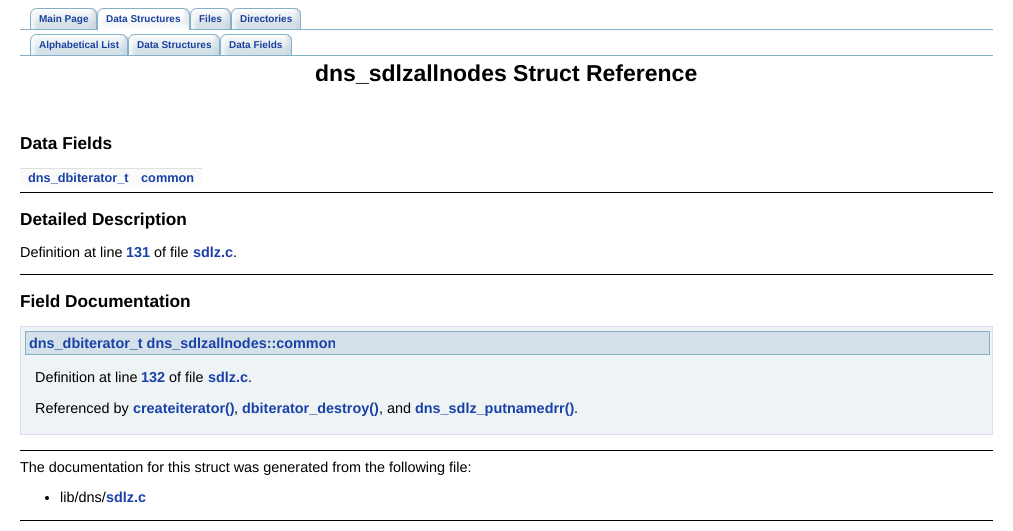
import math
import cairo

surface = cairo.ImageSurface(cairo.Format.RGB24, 1013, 531)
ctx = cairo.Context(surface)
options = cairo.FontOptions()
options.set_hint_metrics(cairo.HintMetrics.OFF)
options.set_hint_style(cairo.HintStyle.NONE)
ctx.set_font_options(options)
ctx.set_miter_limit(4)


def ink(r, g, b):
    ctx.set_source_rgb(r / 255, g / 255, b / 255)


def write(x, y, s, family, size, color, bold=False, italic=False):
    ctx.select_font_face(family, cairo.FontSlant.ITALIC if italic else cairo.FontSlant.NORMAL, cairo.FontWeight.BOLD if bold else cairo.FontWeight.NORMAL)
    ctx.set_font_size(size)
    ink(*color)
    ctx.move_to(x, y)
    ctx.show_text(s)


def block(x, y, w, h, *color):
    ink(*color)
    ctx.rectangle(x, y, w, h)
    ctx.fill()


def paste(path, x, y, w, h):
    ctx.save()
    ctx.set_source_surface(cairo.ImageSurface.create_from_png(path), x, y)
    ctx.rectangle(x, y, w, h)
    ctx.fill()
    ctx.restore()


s1 = dict(family="Liberation Sans", size=10, color=(26, 65, 157), bold=True)
s2 = dict(family="Liberation Sans", size=23, color=(0, 0, 0), bold=True)
s3 = dict(family="Liberation Sans", size=17.25, color=(0, 0, 0), bold=True)
s4 = dict(family="Liberation Sans", size=12.75, color=(26, 65, 168), bold=True)
s5 = dict(family="Liberation Sans", size=14.4, color=(0, 0, 0))
s6 = dict(family="Liberation Sans", size=14.4, color=(26, 65, 168), bold=True)

ink(255, 255, 255)
ctx.paint()
block(20, 29, 973, 1, 132, 176, 199)
paste("pic1.png", 39, 8, 58, 21)
paste("pic2.png", 30, 8, 9, 21)
write(39, 22, "Main Page", **s1)
paste("pic3.png", 104, 8, 86, 22)
paste("pic4.png", 97, 8, 7, 22)
write(106, 22, "Data Structures", **s1)
paste("pic5.png", 199, 8, 32, 21)
paste("pic2.png", 190, 8, 9, 21)
write(199, 22, "Files", **s1)
paste("pic6.png", 240, 8, 61, 21)
paste("pic2.png", 231, 8, 9, 21)
write(240, 22, "Directories", **s1)
block(20, 55, 973, 1, 132, 176, 199)
paste("pic7.png", 39, 34, 89, 21)
paste("pic2.png", 30, 34, 9, 21)
write(39, 48, "Alphabetical List", **s1)
paste("pic8.png", 137, 34, 83, 21)
paste("pic2.png", 128, 34, 9, 21)
write(137, 48, "Data Structures", **s1)
paste("pic9.png", 229, 34, 63, 21)
paste("pic2.png", 220, 34, 9, 21)
write(229, 48, "Data Fields", **s1)
write(315, 81, "dns_sdlzallnodes Struct Reference", **s2)
write(20, 149, "Data Fields", **s3)
block(20, 169, 182, 16, 250, 250, 250)
block(20, 168, 182, 1, 224, 224, 224)
write(28, 182, "dns_dbiterator_t", **s4)
write(141, 182, "common", **s4)
block(20, 192, 973, 1, 0, 0, 0)
write(20, 225, "Detailed Description", **s3)
write(20, 257, "Definition at line", **s5)
write(126, 257, "131", **s6)
write(154, 257, "of file", **s5)
write(193, 257, "sdlz.c", **s6)
write(233, 257, ".", **s5)
block(20, 274, 973, 1, 0, 0, 0)
write(20, 307, "Field Documentation", **s3)
ink(238, 243, 245)
ctx.rectangle(20.5, 326.5, 972, 108)
ctx.fill_preserve()
ink(222, 222, 238)
ctx.set_line_width(1)
ctx.stroke()
ink(213, 225, 232)
ctx.rectangle(25.5, 331.5, 964, 23)
ctx.fill_preserve()
ink(132, 176, 199)
ctx.stroke()
write(29, 348, "dns_dbiterator_t dns_sdlzallnodes::common", **s6)
write(35, 382, "Definition at line", **s5)
write(141, 382, "132", **s6)
write(169, 382, "of file", **s5)
write(208, 382, "sdlz.c", **s6)
write(248, 382, ".", **s5)
write(35, 413, "Referenced by", **s5)
write(133, 413, "createiterator()", **s6)
write(234, 413, ",", **s5)
write(242, 413, "dbiterator_destroy()", **s6)
write(379, 413, ", and", **s5)
write(415, 413, "dns_sdlz_putnamedrr()", **s6)
write(574, 413, ".", **s5)
block(20, 450, 973, 1, 0, 0, 0)
write(20, 472, "The documentation for this struct was generated from the following file:", **s5)
ctx.new_path()
ctx.arc(47, 498, 2, 0, 2 * math.pi)
ctx.fill()
write(60, 502, "lib/dns/", **s5)
write(106, 502, "sdlz.c", **s6)
block(20, 520, 973, 1, 0, 0, 0)
surface.write_to_png("screenshot.png")
